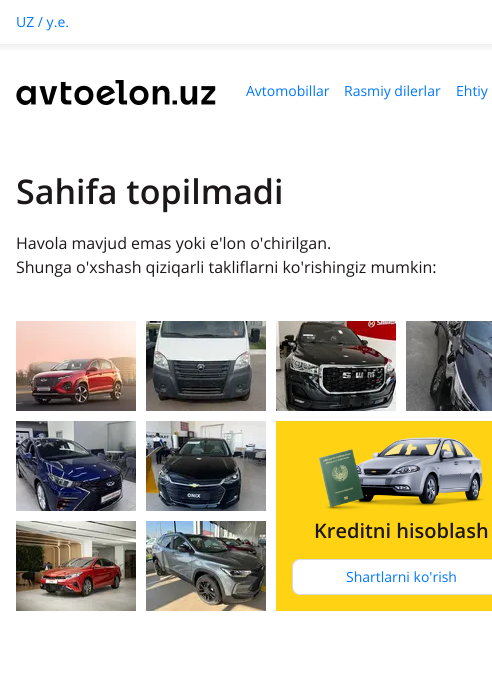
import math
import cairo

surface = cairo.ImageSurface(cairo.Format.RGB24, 492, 681)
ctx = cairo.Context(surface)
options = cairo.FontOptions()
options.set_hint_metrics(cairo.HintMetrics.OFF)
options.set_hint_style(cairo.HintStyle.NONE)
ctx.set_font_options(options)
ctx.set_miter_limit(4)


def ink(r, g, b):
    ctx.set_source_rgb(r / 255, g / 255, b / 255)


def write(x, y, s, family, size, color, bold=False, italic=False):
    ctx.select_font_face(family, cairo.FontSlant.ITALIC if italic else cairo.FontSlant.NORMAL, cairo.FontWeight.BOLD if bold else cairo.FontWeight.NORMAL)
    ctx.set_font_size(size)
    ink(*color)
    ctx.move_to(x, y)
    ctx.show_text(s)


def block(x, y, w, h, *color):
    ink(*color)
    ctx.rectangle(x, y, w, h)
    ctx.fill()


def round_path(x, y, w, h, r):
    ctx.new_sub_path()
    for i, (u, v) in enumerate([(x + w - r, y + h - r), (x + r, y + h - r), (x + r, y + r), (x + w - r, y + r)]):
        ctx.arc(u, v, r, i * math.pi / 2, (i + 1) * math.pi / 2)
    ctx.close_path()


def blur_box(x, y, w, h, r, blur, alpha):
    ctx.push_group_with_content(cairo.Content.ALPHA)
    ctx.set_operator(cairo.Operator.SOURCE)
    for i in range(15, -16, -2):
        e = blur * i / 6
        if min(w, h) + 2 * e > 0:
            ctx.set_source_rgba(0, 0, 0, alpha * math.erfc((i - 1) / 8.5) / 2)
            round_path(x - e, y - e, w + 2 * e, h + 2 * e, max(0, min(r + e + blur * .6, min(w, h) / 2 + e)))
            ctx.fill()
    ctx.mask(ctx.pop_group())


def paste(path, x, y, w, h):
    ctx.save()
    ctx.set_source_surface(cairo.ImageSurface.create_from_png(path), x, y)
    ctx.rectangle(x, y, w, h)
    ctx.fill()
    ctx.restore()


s1 = dict(family="Open Sans", size=14, color=(0, 119, 255))
s2 = dict(family="Open Sans SemiBold", size=34, color=(28, 24, 25))
s3 = dict(family="Open Sans", size=16, color=(28, 24, 25))
s4 = dict(family="Open Sans SemiBold", size=20, color=(28, 24, 25))

ink(255, 255, 255)
ctx.paint()
ctx.save()
ctx.rectangle(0, 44, 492, 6)
ctx.clip()
ink(28, 24, 25)
blur_box(0, 2, 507, 44, 0, 5, 0.1)
ctx.restore()
write(16, 27, "UZ / у.е.", **s1)
paste("pic1.png", 16, 80, 200, 25)
write(246, 96, "Avtomobillar", **s1)
write(344, 96, "Rasmiy dilerlar", **s1)
write(456, 96, "Ehtiy", **s1)
write(16, 204, "Sahifa topilmadi", **s2)
write(16, 249, "Havola mavjud emas yoki e'lon o'chirilgan.", **s3)
write(16, 273, "Shunga o'xshash qiziqarli takliflarni ko'rishingiz mumkin:", **s3)
paste("pic2.png", 16, 321, 120, 90)
paste("pic3.png", 146, 321, 120, 90)
paste("pic4.png", 276, 321, 120, 90)
paste("pic5.png", 406, 321, 86, 90)
paste("pic6.png", 16, 421, 120, 90)
paste("pic7.png", 146, 421, 120, 90)
paste("pic8.png", 16, 521, 120, 90)
paste("pic9.png", 146, 521, 120, 90)
block(276, 421, 216, 190, 255, 211, 19)
paste("pic10.png", 318, 437, 166, 73)
write(314, 538, "Kreditni hisoblash", **s4)
ink(255, 255, 255)
round_path(292, 559, 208, 36, 8)
ctx.fill()
round_path(292.5, 559.5, 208, 35, 7.5)
ctx.set_source_rgba(0.314, 0.357, 0.443, 0.23)
ctx.set_line_width(1)
ctx.stroke()
write(346, 582, "Shartlarni ko'rish", **s1)
surface.write_to_png("screenshot.png")
